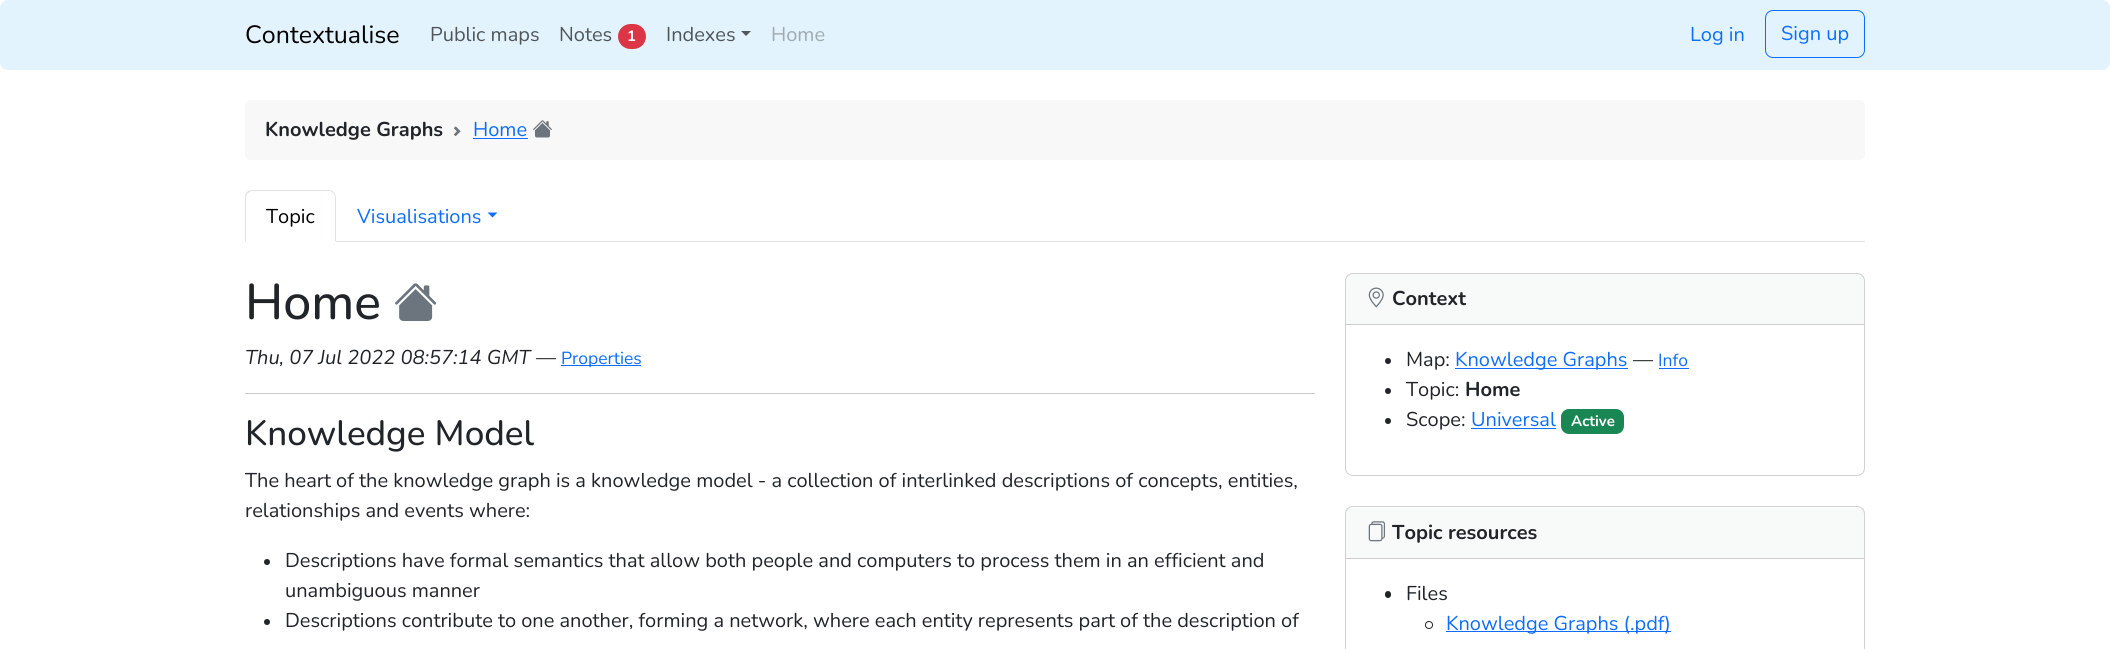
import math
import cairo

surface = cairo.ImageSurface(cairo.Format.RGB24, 2110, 649)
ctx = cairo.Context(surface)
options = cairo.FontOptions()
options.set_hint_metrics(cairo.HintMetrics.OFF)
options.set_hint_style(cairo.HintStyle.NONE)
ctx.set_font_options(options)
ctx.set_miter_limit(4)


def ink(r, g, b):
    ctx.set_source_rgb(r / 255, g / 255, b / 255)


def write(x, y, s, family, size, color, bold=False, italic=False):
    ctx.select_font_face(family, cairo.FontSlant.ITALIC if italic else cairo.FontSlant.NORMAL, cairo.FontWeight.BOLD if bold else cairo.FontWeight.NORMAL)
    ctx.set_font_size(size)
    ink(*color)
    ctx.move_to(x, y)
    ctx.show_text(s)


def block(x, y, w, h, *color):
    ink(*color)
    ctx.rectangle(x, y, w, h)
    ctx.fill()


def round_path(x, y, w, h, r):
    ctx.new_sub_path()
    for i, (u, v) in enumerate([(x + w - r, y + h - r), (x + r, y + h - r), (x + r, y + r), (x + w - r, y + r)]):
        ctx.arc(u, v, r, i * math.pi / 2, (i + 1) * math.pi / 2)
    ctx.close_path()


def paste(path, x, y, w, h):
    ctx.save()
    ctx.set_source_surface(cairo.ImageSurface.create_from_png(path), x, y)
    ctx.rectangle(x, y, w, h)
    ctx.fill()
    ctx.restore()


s1 = dict(family="Nunito", size=25, color=(0, 0, 0))
s2 = dict(family="Nunito", size=20, color=(79, 85, 89))
s3 = dict(family="Nunito", size=15, color=(255, 255, 255), bold=True)
s4 = dict(family="Nunito", size=20, color=(159, 170, 177))
s5 = dict(family="Nunito", size=20, color=(13, 110, 253))
s6 = dict(family="Nunito", size=20, color=(33, 37, 41), bold=True)
s7 = dict(family="Nunito", size=20, color=(0, 0, 0))
s8 = dict(family="Nunito Medium", size=50, color=(33, 37, 41))
s9 = dict(family="Nunito", size=20, color=(33, 37, 41), italic=True)
s10 = dict(family="Nunito", size=20, color=(33, 37, 41))
s11 = dict(family="Nunito", size=17.5, color=(13, 110, 253))
s12 = dict(family="Nunito Medium", size=35, color=(33, 37, 41))

ink(255, 255, 255)
ctx.paint()
ink(227, 243, 253)
round_path(0, 0, 2110, 70, 8)
ctx.fill()
write(245, 43, "Contextualise", **s1)
write(430, 41, "Public maps", **s2)
write(559, 41, "Notes", **s2)
ink(220, 53, 69)
round_path(618, 24, 28, 25, 12.5)
ctx.fill()
write(627, 41, "1", **s3)
write(666, 41, "Indexes", **s2)
ctx.new_path()
ctx.move_to(741, 31)
ctx.line_to(751, 31)
ctx.line_to(746, 36)
ctx.close_path()
ctx.fill()
write(771, 41, "Home", **s4)
write(1690, 41, "Log in", **s5)
round_path(1765.5, 10.5, 99, 47, 7.5)
ctx.set_line_width(1)
ctx.stroke()
write(1781, 40, "Sign up", **s5)
ink(248, 248, 248)
round_path(245, 100, 1620, 60, 6)
ctx.fill()
write(265, 136, "Knowledge Graphs", **s6)
paste("pic1.png", 453, 126, 8, 10)
write(473, 136, "Home", **s5)
block(473, 138, 55, 1, 13, 110, 253)
paste("pic2.png", 533, 120, 19, 18)
block(336, 241, 1529, 1, 222, 226, 230)
ctx.new_path()
ctx.move_to(252, 190)
ctx.curve_to(250, 190, 248, 191, 247, 192)
ctx.line_to(248, 193)
ctx.line_to(251, 191)
ctx.line_to(330, 191)
ctx.curve_to(331, 191, 332, 192, 333, 193)
ctx.line_to(334, 192)
ctx.curve_to(333, 191, 331, 190, 329, 190)
ctx.close_path()
ctx.fill()
ctx.new_path()
ctx.move_to(334, 192)
ctx.curve_to(335, 194, 336, 196, 336, 198)
ctx.line_to(336, 242)
ctx.line_to(335, 241)
ctx.line_to(335, 198)
ctx.curve_to(335, 196, 334, 194, 333, 193)
ctx.close_path()
ctx.fill()
ink(255, 255, 255)
ctx.new_path()
ctx.move_to(336, 242)
ctx.line_to(246, 242)
ctx.line_to(246, 241)
ctx.line_to(335, 241)
ctx.close_path()
ctx.fill()
ink(222, 226, 230)
ctx.new_path()
ctx.move_to(245, 198)
ctx.line_to(245, 242)
ctx.line_to(246, 241)
ctx.line_to(246, 198)
ctx.curve_to(246, 196, 247, 194, 248, 193)
ctx.line_to(247, 192)
ctx.curve_to(246, 193, 245, 195, 245, 198)
ctx.close_path()
ctx.fill()
write(266, 223, "Topic", **s7)
write(357, 223, "Visualisations", **s5)
ctx.new_path()
ctx.move_to(487.5, 212.5)
ctx.line_to(497.5, 212.5)
ctx.line_to(492.5, 217.5)
ctx.close_path()
ctx.fill()
write(245, 319, "Home", **s8)
paste("pic3.png", 395, 283, 42, 38)
write(245, 364, "Thu, 07 Jul 2022 08:57:14 GMT", **s9)
write(536, 364, "—", **s10)
block(561, 365, 80, 1, 13, 110, 253)
write(561, 364, "Properties", **s11)
block(245, 393, 1070, 1, 200, 201, 202)
write(245, 445, "Knowledge Model", **s12)
write(245, 487, "The heart of the knowledge graph is a knowledge model - a collection of interlinked descriptions of concepts, entities,", **s10)
write(245, 517, "relationships and events where:", **s10)
ctx.new_path()
ctx.arc(267, 562, 3, 0, 2 * math.pi)
ctx.fill()
write(285, 567, "Descriptions have formal semantics that allow both people and computers to process them in an efficient and", **s10)
write(285, 597, "unambiguous manner", **s10)
ctx.new_path()
ctx.arc(267, 622, 3, 0, 2 * math.pi)
ctx.fill()
write(285, 627, "Descriptions contribute to one another, forming a network, where each entity represents part of the description of", **s10)
round_path(1345.5, 273.5, 519, 202, 7.5)
ink(210, 210, 210)
ctx.stroke()
ctx.set_source_rgba(0.129, 0.145, 0.161, 0.03)
ctx.rectangle(1346, 274, 518, 50)
ctx.fill()
block(1346, 324, 518, 1, 205, 205, 205)
paste("pic4.png", 1368, 287, 16, 21)
write(1392, 305, "Context", **s6)
ctx.new_path()
ctx.arc(1388, 361, 3, 0, 2 * math.pi)
ctx.fill()
write(1406, 366, "Map:", **s10)
block(1455, 368, 173, 1, 13, 110, 253)
write(1455, 366, "Knowledge Graphs", **s5)
write(1633, 366, "—", **s10)
write(1658, 366, "Info", **s11)
block(1659, 368, 30, 1, 13, 110, 253)
ink(33, 37, 41)
ctx.new_path()
ctx.arc(1388, 391, 3, 0, 2 * math.pi)
ctx.fill()
write(1406, 396, "Topic:", **s10)
write(1465, 396, "Home", **s6)
ctx.new_path()
ctx.arc(1388, 421, 3, 0, 2 * math.pi)
ctx.fill()
write(1406, 426, "Scope:", **s10)
write(1471, 426, "Universal", **s5)
block(1471, 428, 85, 1, 13, 110, 253)
ink(25, 135, 84)
round_path(1561, 409, 63, 25, 8)
ctx.fill()
write(1571, 426, "Active", **s3)
round_path(1345.5, 506.5, 519, 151, 7.5)
ink(210, 210, 210)
ctx.stroke()
ctx.set_source_rgba(0.129, 0.145, 0.161, 0.03)
ctx.rectangle(1346, 508, 518, 50)
ctx.fill()
block(1346, 558, 518, 1, 205, 205, 205)
paste("pic5.png", 1368, 521, 17, 21)
write(1392, 539, "Topic resources", **s6)
round_path(1385, 591, 6, 7, 3)
ctx.fill()
write(1406, 600, "Files", **s10)
ctx.new_path()
ctx.arc(1429, 625, 3.5, 0, 2 * math.pi)
ctx.stroke()
block(1446, 631, 225, 1, 13, 110, 253)
write(1446, 630, "Knowledge Graphs (.pdf)", **s5)
surface.write_to_png("screenshot.png")
